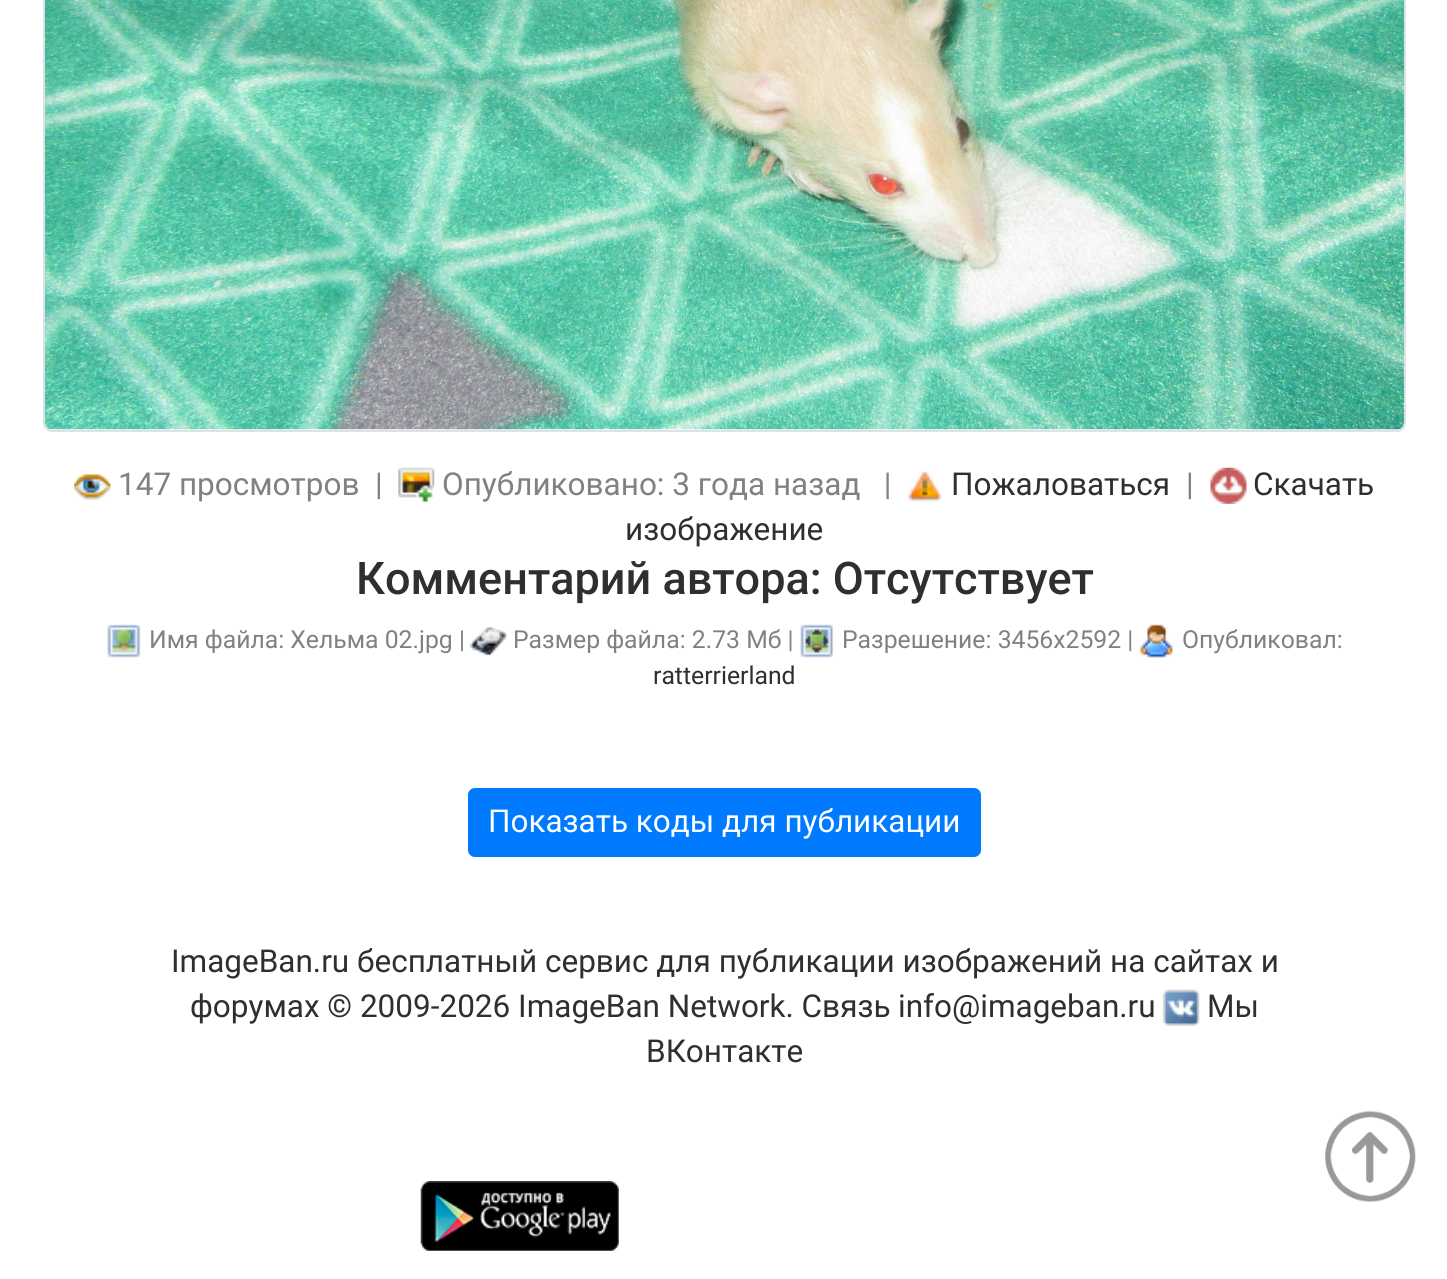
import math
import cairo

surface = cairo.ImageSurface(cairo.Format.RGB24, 1447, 1279)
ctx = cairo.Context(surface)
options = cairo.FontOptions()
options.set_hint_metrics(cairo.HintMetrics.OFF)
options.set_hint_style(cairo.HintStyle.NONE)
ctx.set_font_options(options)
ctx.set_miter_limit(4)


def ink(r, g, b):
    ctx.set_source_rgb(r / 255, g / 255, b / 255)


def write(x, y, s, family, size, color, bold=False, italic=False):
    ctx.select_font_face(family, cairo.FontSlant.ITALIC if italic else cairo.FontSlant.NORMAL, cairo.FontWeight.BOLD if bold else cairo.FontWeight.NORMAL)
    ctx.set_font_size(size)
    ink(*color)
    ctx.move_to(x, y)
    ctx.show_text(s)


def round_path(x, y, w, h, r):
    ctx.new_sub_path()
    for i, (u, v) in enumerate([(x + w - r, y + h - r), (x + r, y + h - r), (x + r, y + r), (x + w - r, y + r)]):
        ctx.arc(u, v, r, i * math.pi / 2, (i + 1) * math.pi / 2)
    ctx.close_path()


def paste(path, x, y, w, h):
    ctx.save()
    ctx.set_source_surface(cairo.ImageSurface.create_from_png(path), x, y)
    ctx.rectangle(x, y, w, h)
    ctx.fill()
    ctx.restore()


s1 = dict(family="Roboto", size=31.5, color=(129, 129, 129))
s2 = dict(family="Roboto", size=31.5, color=(47, 47, 47))
s3 = dict(family="Roboto Medium", size=45, color=(47, 47, 47))
s4 = dict(family="Roboto", size=24.75, color=(129, 129, 129))
s5 = dict(family="Roboto", size=24.75, color=(47, 47, 47))
s6 = dict(family="Roboto", size=31.5, color=(255, 255, 255))

ink(255, 255, 255)
ctx.paint()
round_path(44, -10, 1361, 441, 8)
ink(222, 226, 230)
ctx.stroke()
paste("pic1.png", 45, 0, 1359, 430)
paste("pic2.png", 74, 474, 37, 26)
write(118, 495, "147 просмотров  |", **s1)
paste("pic3.png", 398, 467, 37, 36)
write(442, 495, "Опубликовано: 3 года назад   |", **s1)
paste("pic4.png", 908, 471, 34, 31)
write(951, 495, "Пожаловаться", **s2)
write(1186, 495, "|", **s1)
paste("pic5.png", 1210, 467, 37, 37)
write(1253, 495, "Скачать", **s2)
write(625, 540, "изображение", **s2)
write(356, 594, "Комментарий автора: Отсутствует", **s3)
paste("pic6.png", 107, 624, 34, 34)
write(149, 648, "Имя файла: Хельма 02.jpg |", **s4)
paste("pic7.png", 470, 627, 37, 29)
write(513, 648, "Размер файла: 2.73 Мб |", **s4)
paste("pic8.png", 800, 624, 34, 34)
write(842, 648, "Разрешение: 3456x2592 |", **s4)
paste("pic9.png", 1140, 624, 33, 34)
write(1182, 648, "Опубликовал:", **s4)
write(653, 684, "ratterrierland", **s5)
ink(0, 123, 255)
round_path(469, 789, 511, 67, 6)
ctx.fill_preserve()
ctx.stroke()
write(488, 832, "Показать коды для публикации", **s6)
write(171, 972, "ImageBan.ru бесплатный сервис для публикации изображений на сайтах и", **s2)
write(190, 1017, "форумах © 2009-2026 ImageBan Network. Связь", **s2)
write(898, 1017, "info@imageban.ru", **s2)
paste("pic10.png", 1163, 989, 37, 37)
write(1207, 1017, "Мы", **s2)
write(646, 1062, "ВКонтакте", **s2)
paste("pic11.png", 420, 1181, 199, 70)
paste("pic12.png", 1325, 1111, 91, 91)
surface.write_to_png("screenshot.png")
